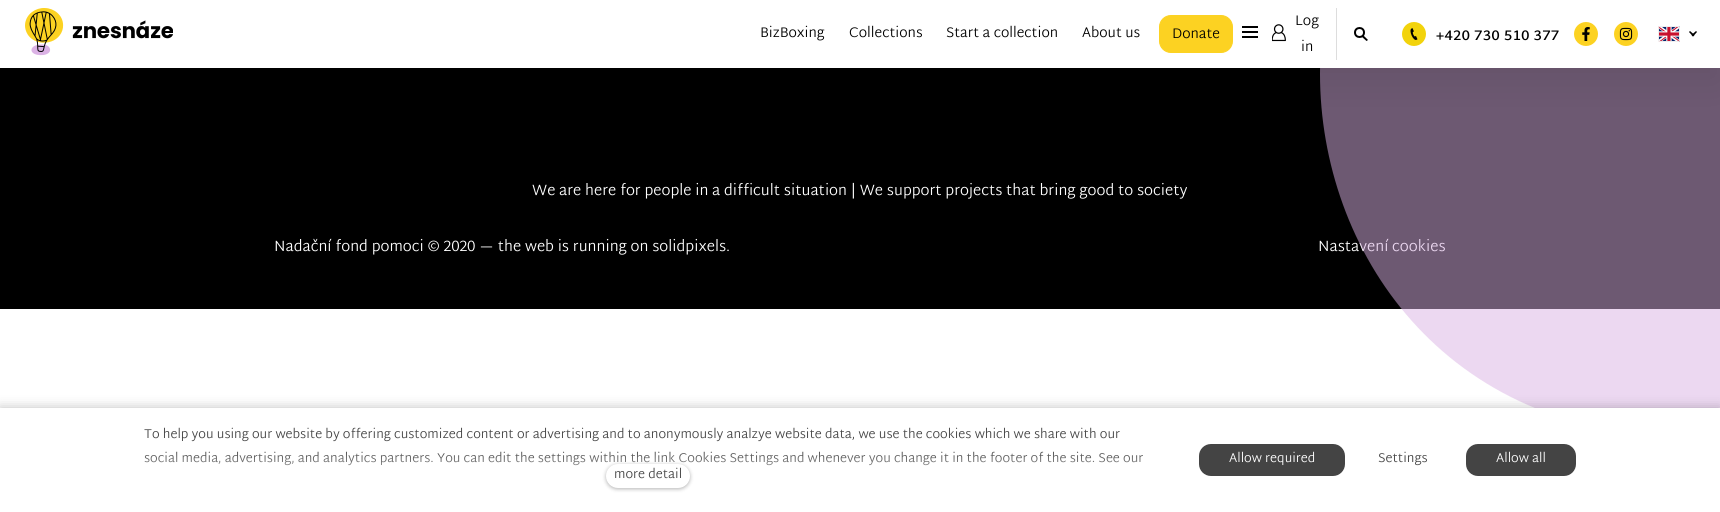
import math
import cairo

surface = cairo.ImageSurface(cairo.Format.RGB24, 1720, 512)
ctx = cairo.Context(surface)
options = cairo.FontOptions()
options.set_hint_metrics(cairo.HintMetrics.OFF)
options.set_hint_style(cairo.HintStyle.NONE)
ctx.set_font_options(options)
ctx.set_miter_limit(4)


def ink(r, g, b):
    ctx.set_source_rgb(r / 255, g / 255, b / 255)


def write(x, y, s, family, size, color, bold=False, italic=False):
    ctx.select_font_face(family, cairo.FontSlant.ITALIC if italic else cairo.FontSlant.NORMAL, cairo.FontWeight.BOLD if bold else cairo.FontWeight.NORMAL)
    ctx.set_font_size(size)
    ink(*color)
    ctx.move_to(x, y)
    ctx.show_text(s)


def write_spaced(x, y, s, letter, word):
    ctx.move_to(x, y)
    for ch in s:
        ctx.show_text(ch)
        ctx.rel_move_to(letter + word * (ch == ' '), 0)


def block(x, y, w, h, *color):
    ink(*color)
    ctx.rectangle(x, y, w, h)
    ctx.fill()


def round_path(x, y, w, h, r):
    ctx.new_sub_path()
    for i, (u, v) in enumerate([(x + w - r, y + h - r), (x + r, y + h - r), (x + r, y + r), (x + w - r, y + r)]):
        ctx.arc(u, v, r, i * math.pi / 2, (i + 1) * math.pi / 2)
    ctx.close_path()


def blur_box(x, y, w, h, r, blur, alpha):
    ctx.push_group_with_content(cairo.Content.ALPHA)
    ctx.set_operator(cairo.Operator.SOURCE)
    for i in range(15, -16, -2):
        e = blur * i / 6
        if min(w, h) + 2 * e > 0:
            ctx.set_source_rgba(0, 0, 0, alpha * math.erfc((i - 1) / 8.5) / 2)
            round_path(x - e, y - e, w + 2 * e, h + 2 * e, max(0, min(r + e + blur * .6, min(w, h) / 2 + e)))
            ctx.fill()
    ctx.mask(ctx.pop_group())


def paste(path, x, y, w, h):
    ctx.save()
    ctx.set_source_surface(cairo.ImageSurface.create_from_png(path), x, y)
    ctx.rectangle(x, y, w, h)
    ctx.fill()
    ctx.restore()


s1 = dict(family="Martel Sans Light", size=15, color=(255, 255, 255))
s2 = dict(family="Martel Sans Light", size=14, color=(0, 0, 0))
s3 = dict(family="Martel Sans Light", size=12.8, color=(68, 68, 68))
s4 = dict(family="Martel Sans Light", size=12.8, color=(255, 255, 255))

ink(255, 255, 255)
ctx.paint()
block(0, 68, 1720, 241, 0, 0, 0)
write(1318, 251, "Nastavení cookies", **s1)
ctx.set_source_rgba(0.859, 0.698, 0.898, 0.5)
ctx.set_fill_rule(cairo.FillRule.EVEN_ODD)
ctx.new_path()
ctx.move_to(1690, -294)
ctx.curve_to(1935, -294, 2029, -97, 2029, 74)
ctx.curve_to(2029, 244, 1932, 437, 1690, 437)
ctx.curve_to(1442, 437, 1320, 249, 1320, 74)
ctx.curve_to(1320, -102, 1439, -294, 1690, -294)
ctx.close_path()
ctx.fill()
ink(0, 0, 0)
blur_box(0, 15, 1720, 68, 0, 20, 0.08)
block(0, 0, 1720, 68, 255, 255, 255)
paste("pic1.png", 25, 8, 148, 48)
write(760, 37, "BizBoxing", **s2)
write(849, 37, "Collections", **s2)
write(946, 37, "Start a collection", **s2)
write(1082, 37, "About us", **s2)
ink(252, 210, 34)
round_path(1159.5, 15.5, 73, 37, 11.5)
ctx.fill_preserve()
ctx.set_line_width(1)
ctx.stroke()
write(1172, 38, "Donate", **s2)
block(1242, 26, 16, 2, 0, 0, 0)
block(1242, 31, 16, 2, 0, 0, 0)
block(1242, 36, 16, 2, 0, 0, 0)
block(1336, 8, 1, 52, 221, 221, 221)
write(1295, 25, "Log", **s2)
paste("pic2.png", 1272, 24, 14, 18)
write(1301, 51, "in", **s2)
ctx.new_path()
ctx.arc(1359.5, 32.5, 4.5, 0, 2 * math.pi)
ctx.set_line_width(2)
ctx.stroke()
ctx.set_fill_rule(cairo.FillRule.WINDING)
ctx.new_path()
ctx.move_to(1363, 35)
ctx.line_to(1368, 40)
ctx.line_to(1366.5, 41)
ctx.line_to(1361.5, 36.5)
ctx.close_path()
ctx.fill()
ink(242, 211, 12)
ctx.arc(1414, 34, 12, 0, 2 * math.pi)
ctx.fill()
paste("pic3.png", 1410, 28, 8, 12)
ctx.select_font_face("Martel Sans SemiBold")
ink(0, 0, 0)
write_spaced(1436, 40, "+420 730 510 377", 0.5, 0)
ink(252, 210, 34)
ctx.new_path()
ctx.arc(1586, 34, 12, 0, 2 * math.pi)
ctx.fill()
paste("pic4.png", 1582, 27, 8, 14)
ctx.arc(1626, 34, 12, 0, 2 * math.pi)
ctx.fill()
paste("pic5.png", 1619, 27, 14, 14)
paste("pic6.png", 1658, 26, 22, 16)
round_path(1658.5, 26.5, 21, 15, 1.5)
ink(238, 238, 238)
ctx.set_line_width(1)
ctx.stroke()
ink(0, 0, 0)
ctx.new_path()
ctx.move_to(1696, 31)
ctx.line_to(1697, 32)
ctx.line_to(1693, 36.5)
ctx.line_to(1691.5, 35)
ctx.close_path()
ctx.fill()
ctx.new_path()
ctx.move_to(1690, 31)
ctx.line_to(1694.5, 35)
ctx.line_to(1693, 36.5)
ctx.line_to(1689, 32)
ctx.close_path()
ctx.fill()
write(532, 195, "We are here for people in a difficult situation | We support projects that bring good to society", **s1)
write(274, 251, "Nadační fond pomoci © 2020 — the web is running on solidpixels.", **s1)
ink(0, 0, 0)
blur_box(0, 408, 1720, 104, 0, 6, 0.25)
block(0, 408, 1720, 104, 255, 255, 255)
write(144, 438, "To help you using our website by offering customized content or advertising and to anonymously analzye website data, we use the cookies which we share with our", **s3)
write(144, 462, "social media, advertising, and analytics partners. You can edit the settings within the link Cookies Settings and whenever you change it in the footer of the site. See our", **s3)
gradient = cairo.LinearGradient(648, 496, 648, 450)
gradient.add_color_stop_rgba(0, 1, 1, 1, 1)
gradient.add_color_stop_rgba(1, 1, 1, 1, 0)
ctx.set_source(gradient)
ctx.rectangle(144, 452, 999, 14)
ctx.fill()
ink(0, 0, 0)
blur_box(606, 465, 84, 24, 12, 2, 0.3)
ink(255, 255, 255)
round_path(606, 464, 84, 24, 12)
ctx.fill()
write(614, 478, "more detail", **s3)
round_path(1199, 444, 146, 32, 12)
ctx.fill()
write(1229, 462, "Allow required", **s4)
write(1378, 462, "Settings", **s3)
round_path(1466, 444, 110, 32, 12)
ctx.fill()
write(1496, 462, "Allow all", **s4)
surface.write_to_png("screenshot.png")
